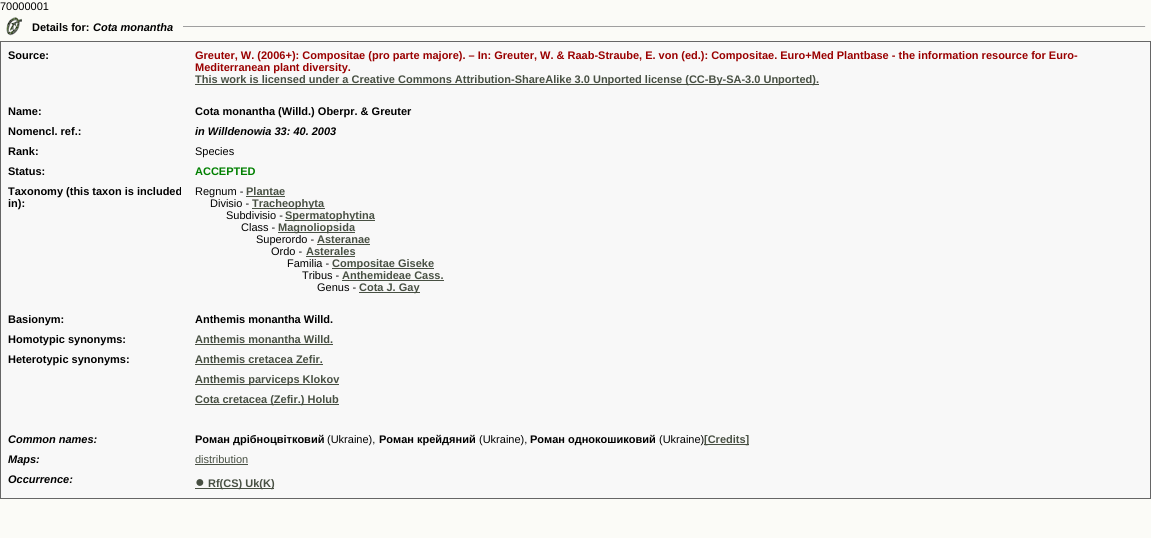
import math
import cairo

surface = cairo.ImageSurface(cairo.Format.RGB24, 1151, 538)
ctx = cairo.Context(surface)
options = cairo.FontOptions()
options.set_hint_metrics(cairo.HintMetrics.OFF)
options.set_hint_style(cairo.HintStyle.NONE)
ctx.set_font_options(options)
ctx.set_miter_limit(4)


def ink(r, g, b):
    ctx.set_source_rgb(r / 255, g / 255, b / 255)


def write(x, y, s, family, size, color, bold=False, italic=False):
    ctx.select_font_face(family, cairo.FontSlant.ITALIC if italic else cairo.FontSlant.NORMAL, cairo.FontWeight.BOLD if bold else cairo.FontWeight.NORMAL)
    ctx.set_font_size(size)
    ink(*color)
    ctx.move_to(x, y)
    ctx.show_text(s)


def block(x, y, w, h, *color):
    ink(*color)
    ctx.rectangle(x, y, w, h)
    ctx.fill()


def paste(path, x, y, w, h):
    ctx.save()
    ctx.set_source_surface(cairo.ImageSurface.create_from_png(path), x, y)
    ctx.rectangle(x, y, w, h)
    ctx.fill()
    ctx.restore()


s1 = dict(family="Liberation Sans", size=11, color=(0, 0, 0))
s2 = dict(family="Liberation Sans", size=11, color=(0, 0, 0), bold=True)
s3 = dict(family="Liberation Sans", size=11, color=(0, 0, 0), bold=True, italic=True)
s4 = dict(family="Liberation Sans", size=11, color=(153, 0, 0), bold=True)
s5 = dict(family="Liberation Sans", size=11, color=(72, 80, 67), bold=True)
s6 = dict(family="Liberation Sans", size=11, color=(0, 128, 0), bold=True)
s7 = dict(family="Liberation Sans", size=11, color=(72, 80, 67))
s8 = dict(family="Liberation Sans", size=16, color=(72, 80, 67), bold=True)

ink(251, 251, 247)
ctx.paint()
write(0, 10, "70000001", **s1)
paste("pic1.png", 6, 17, 16, 19)
write(32, 31, "Details for:", **s2)
write(93, 31, "Cota monantha", **s3)
block(183, 26, 963, 1, 159, 159, 159)
block(1145, 26, 1, 1, 238, 238, 238)
block(0, 41, 1151, 1, 102, 102, 102)
block(1150, 41, 1, 458, 102, 102, 102)
block(0, 498, 1151, 1, 102, 102, 102)
block(0, 41, 1, 458, 102, 102, 102)
block(1, 42, 1149, 456, 248, 248, 248)
write(8, 59, "Source:", **s2)
write(195, 59, "Greuter, W. (2006+): Compositae (pro parte majore). – In: Greuter, W. & Raab-Straube, E. von (ed.): Compositae. Euro+Med Plantbase - the information resource for Euro-", **s4)
write(195, 71, "Mediterranean plant diversity.", **s4)
block(195, 84, 624, 1, 72, 80, 67)
write(195, 83, "This work is licensed under a Creative Commons Attribution-ShareAlike 3.0 Unported license (CC-By-SA-3.0 Unported).", **s5)
write(8, 115, "Name:", **s2)
write(195, 115, "Cota monantha (Willd.) Oberpr. & Greuter", **s2)
write(8, 135, "Nomencl. ref.:", **s2)
write(195, 135, "in Willdenowia 33: 40. 2003", **s3)
write(8, 155, "Rank:", **s2)
write(195, 155, "Species", **s1)
write(8, 175, "Status:", **s2)
write(195, 175, "ACCEPTED", **s6)
write(8, 195, "Taxonomy (this taxon is included", **s2)
write(8, 207, "in):", **s2)
write(195, 195, "Regnum -", **s1)
write(246, 195, "Plantae", **s5)
block(246, 196, 39, 1, 72, 80, 67)
write(210, 207, "Divisio -", **s1)
block(252, 208, 73, 1, 72, 80, 67)
write(252, 207, "Tracheophyta", **s5)
write(226, 219, "Subdivisio -", **s1)
block(285, 220, 90, 1, 72, 80, 67)
write(285, 219, "Spermatophytina", **s5)
write(241, 231, "Class -", **s1)
block(278, 232, 77, 1, 72, 80, 67)
write(278, 231, "Magnoliopsida", **s5)
write(256, 243, "Superordo -", **s1)
write(317, 243, "Asteranae", **s5)
block(317, 244, 53, 1, 72, 80, 67)
write(271, 255, "Ordo -", **s1)
write(306, 255, "Asterales", **s5)
block(306, 256, 49, 1, 72, 80, 67)
write(287, 267, "Familia -", **s1)
block(332, 268, 102, 1, 72, 80, 67)
write(332, 267, "Compositae Giseke", **s5)
write(302, 279, "Tribus -", **s1)
write(342, 279, "Anthemideae Cass.", **s5)
block(342, 280, 102, 1, 72, 80, 67)
write(317, 291, "Genus -", **s1)
block(359, 292, 61, 1, 72, 80, 67)
write(359, 291, "Cota J. Gay", **s5)
write(8, 323, "Basionym:", **s2)
write(195, 323, "Anthemis monantha Willd.", **s2)
write(8, 343, "Homotypic synonyms:", **s2)
write(195, 343, "Anthemis monantha Willd.", **s5)
block(195, 344, 138, 1, 72, 80, 67)
write(8, 363, "Heterotypic synonyms:", **s2)
write(195, 363, "Anthemis cretacea Zefir.", **s5)
block(195, 364, 128, 1, 72, 80, 67)
block(195, 384, 144, 1, 72, 80, 67)
write(195, 383, "Anthemis parviceps Klokov", **s5)
block(195, 404, 144, 1, 72, 80, 67)
write(195, 403, "Cota cretacea (Zefir.) Holub", **s5)
write(8, 443, "Common names:", **s3)
write(195, 443, "Роман дрiбноцвiтковий", **s2)
write(327, 443, "(Ukraine),", **s1)
write(379, 443, "Роман крейдяний", **s2)
write(479, 443, "(Ukraine),", **s1)
write(530, 443, "Роман однокошиковий", **s2)
write(659, 443, "(Ukraine)", **s1)
block(704, 444, 45, 1, 72, 80, 67)
write(704, 443, "[Credits]", **s5)
write(8, 463, "Maps:", **s3)
write(195, 463, "distribution", **s7)
block(195, 464, 53, 1, 72, 80, 67)
write(8, 483, "Occurrence:", **s3)
write(195, 487, "●", **s8)
block(195, 488, 79, 1, 72, 80, 67)
write(208, 487, "Rf(CS) Uk(K)", **s5)
surface.write_to_png("screenshot.png")
